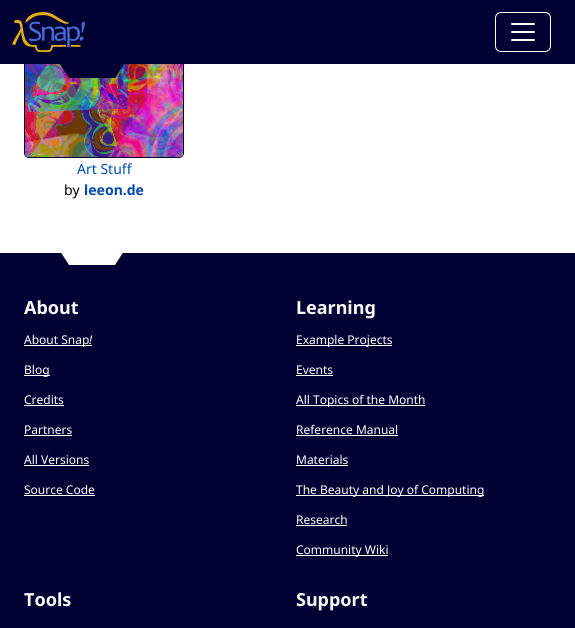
import math
import cairo

surface = cairo.ImageSurface(cairo.Format.RGB24, 575, 628)
ctx = cairo.Context(surface)
options = cairo.FontOptions()
options.set_hint_metrics(cairo.HintMetrics.OFF)
options.set_hint_style(cairo.HintStyle.NONE)
ctx.set_font_options(options)
ctx.set_miter_limit(4)


def ink(r, g, b):
    ctx.set_source_rgb(r / 255, g / 255, b / 255)


def write(x, y, s, family, size, color, bold=False, italic=False):
    ctx.select_font_face(family, cairo.FontSlant.ITALIC if italic else cairo.FontSlant.NORMAL, cairo.FontWeight.BOLD if bold else cairo.FontWeight.NORMAL)
    ctx.set_font_size(size)
    ink(*color)
    ctx.move_to(x, y)
    ctx.show_text(s)


def block(x, y, w, h, *color):
    ink(*color)
    ctx.rectangle(x, y, w, h)
    ctx.fill()


def round_path(x, y, w, h, r):
    ctx.new_sub_path()
    for i, (u, v) in enumerate([(x + w - r, y + h - r), (x + r, y + h - r), (x + r, y + r), (x + w - r, y + r)]):
        ctx.arc(u, v, r, i * math.pi / 2, (i + 1) * math.pi / 2)
    ctx.close_path()


def paste(path, x, y, w, h):
    ctx.save()
    ctx.set_source_surface(cairo.ImageSurface.create_from_png(path), x, y)
    ctx.rectangle(x, y, w, h)
    ctx.fill()
    ctx.restore()


s1 = dict(family="Noto Sans", size=14, color=(0, 74, 174))
s2 = dict(family="Noto Sans", size=14, color=(0, 0, 0))
s3 = dict(family="Noto Sans", size=14, color=(0, 74, 174), bold=True)
s4 = dict(family="Noto Sans", size=18, color=(248, 249, 250), bold=True)
s5 = dict(family="Noto Sans", size=12, color=(255, 255, 255))
s6 = dict(family="Noto Sans", size=12, color=(255, 255, 255), italic=True)

ink(255, 255, 255)
ctx.paint()
round_path(24.5, 38.5, 159, 119, 4.5)
ink(1, 1, 51)
ctx.set_line_width(1)
ctx.stroke()
block(0, 0, 575, 64, 1, 1, 51)
paste("pic1.png", 12, 12, 73, 40)
round_path(495.5, 12.5, 55, 39, 5.5)
ink(255, 255, 255)
ctx.stroke()
paste("pic2.png", 511, 23, 24, 18)
paste("pic3.png", 25, 64, 158, 93)
ink(1, 1, 51)
ctx.new_path()
ctx.move_to(60, 64)
ctx.line_to(124, 64)
ctx.line_to(115, 78)
ctx.line_to(69, 78)
ctx.close_path()
ctx.fill()
write(77, 174, "Art Stuff", **s1)
write(64, 195, "by", **s2)
write(84, 195, "leeon.de", **s3)
block(0, 253, 575, 375, 1, 1, 51)
ink(255, 255, 255)
ctx.new_path()
ctx.move_to(60, 251)
ctx.line_to(124, 251)
ctx.line_to(115, 265)
ctx.line_to(69, 265)
ctx.close_path()
ctx.fill()
write(24, 314, "About", **s4)
block(24, 345, 68, 1, 255, 255, 255)
write(24, 344, "About Snap", **s5)
write(89, 344, "!", **s6)
block(24, 375, 26, 1, 255, 255, 255)
write(24, 374, "Blog", **s5)
write(24, 404, "Credits", **s5)
block(24, 405, 40, 1, 255, 255, 255)
write(24, 434, "Partners", **s5)
block(24, 435, 48, 1, 255, 255, 255)
write(24, 464, "All Versions", **s5)
block(24, 465, 65, 1, 255, 255, 255)
write(24, 494, "Source Code", **s5)
block(24, 495, 71, 1, 255, 255, 255)
write(296, 314, "Learning", **s4)
block(296, 345, 96, 1, 255, 255, 255)
write(296, 344, "Example Projects", **s5)
write(296, 374, "Events", **s5)
block(296, 375, 37, 1, 255, 255, 255)
block(296, 405, 129, 1, 255, 255, 255)
write(296, 404, "All Topics of the Month", **s5)
write(296, 434, "Reference Manual", **s5)
block(296, 435, 102, 1, 255, 255, 255)
write(296, 464, "Materials", **s5)
block(296, 465, 52, 1, 255, 255, 255)
block(296, 495, 188, 1, 255, 255, 255)
write(296, 494, "The Beauty and Joy of Computing", **s5)
write(296, 524, "Research", **s5)
block(296, 525, 51, 1, 255, 255, 255)
block(296, 555, 92, 1, 255, 255, 255)
write(296, 554, "Community Wiki", **s5)
write(24, 606, "Tools", **s4)
write(296, 606, "Support", **s4)
surface.write_to_png("screenshot.png")
